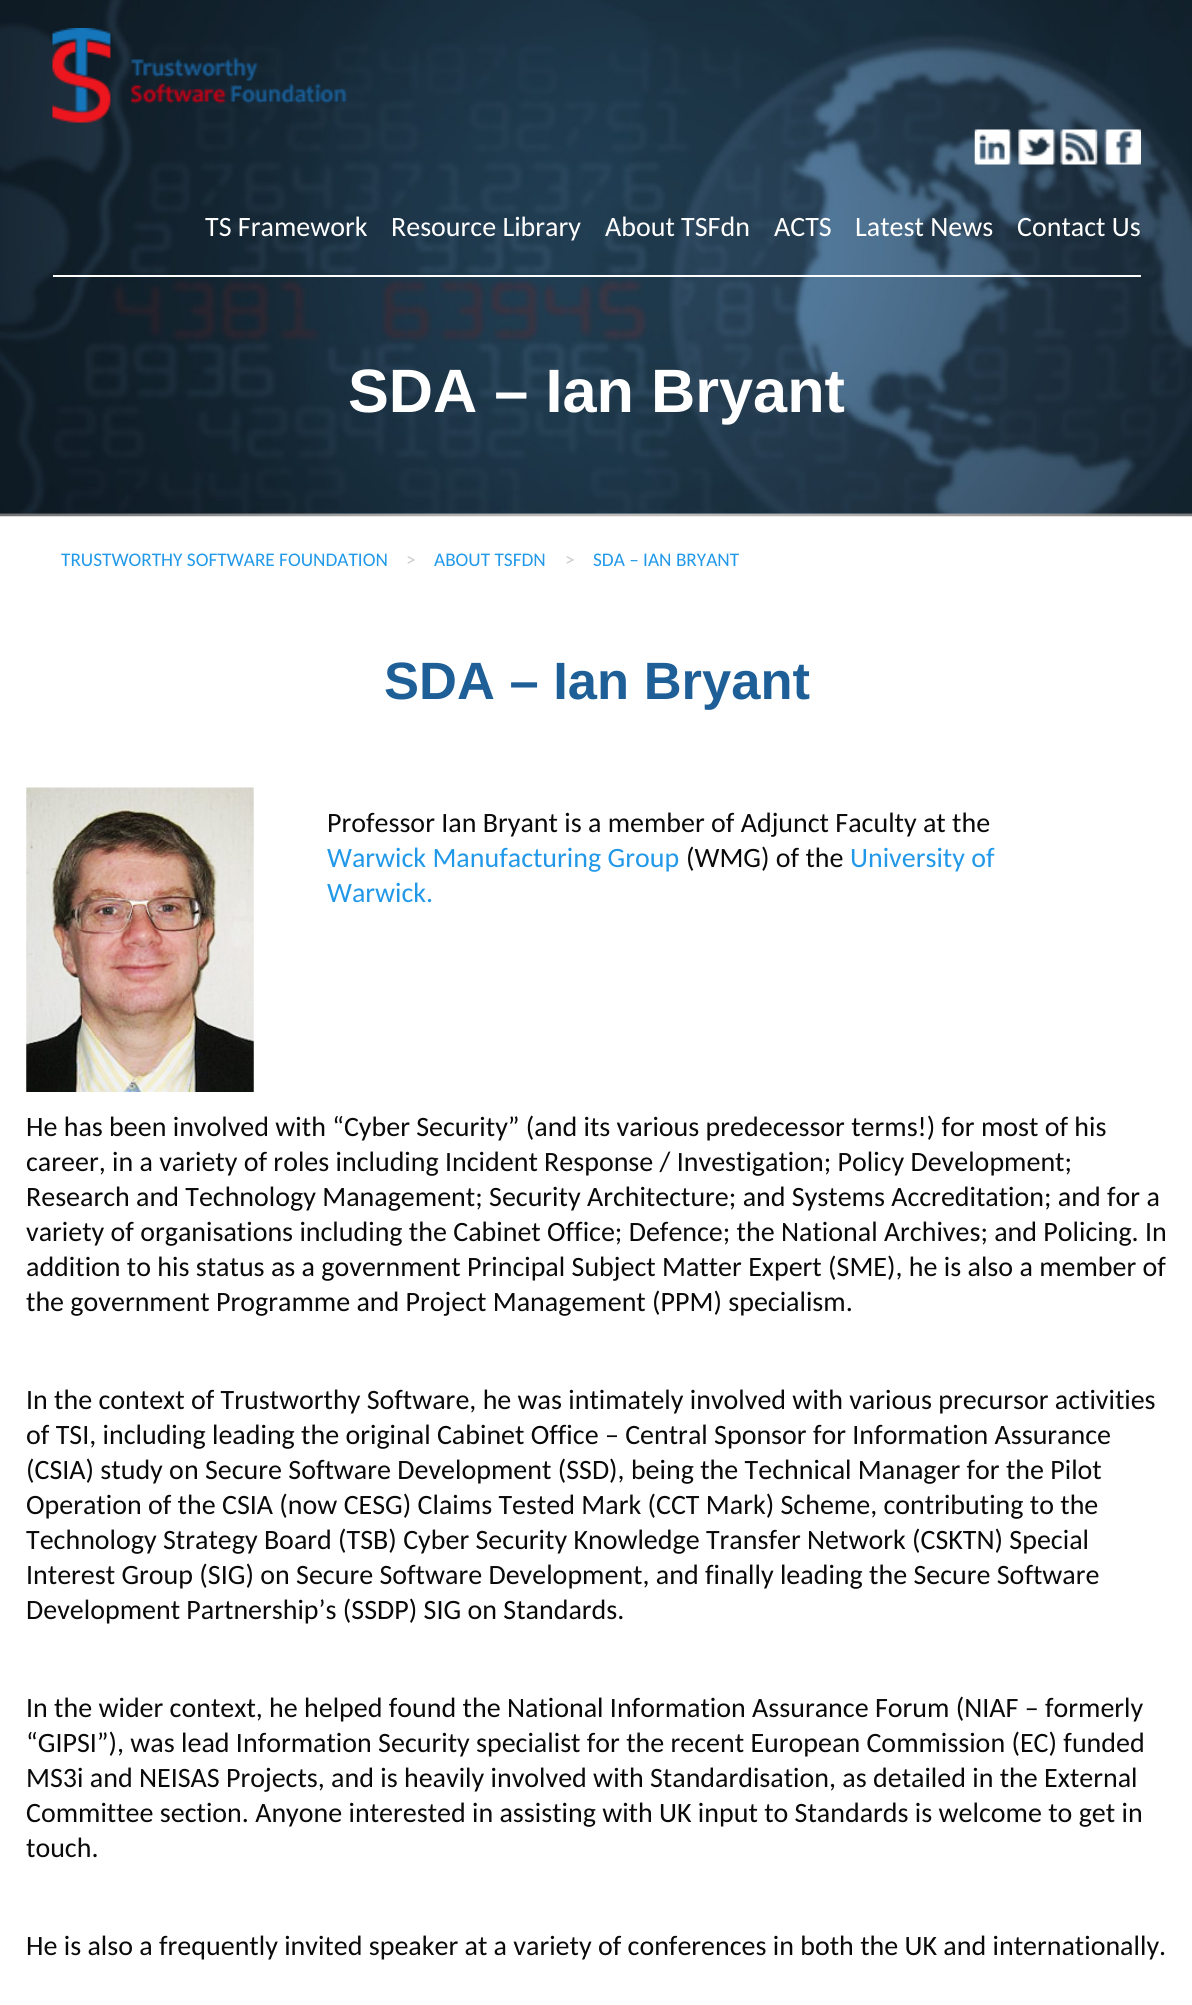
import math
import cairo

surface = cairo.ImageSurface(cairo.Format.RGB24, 1192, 2005)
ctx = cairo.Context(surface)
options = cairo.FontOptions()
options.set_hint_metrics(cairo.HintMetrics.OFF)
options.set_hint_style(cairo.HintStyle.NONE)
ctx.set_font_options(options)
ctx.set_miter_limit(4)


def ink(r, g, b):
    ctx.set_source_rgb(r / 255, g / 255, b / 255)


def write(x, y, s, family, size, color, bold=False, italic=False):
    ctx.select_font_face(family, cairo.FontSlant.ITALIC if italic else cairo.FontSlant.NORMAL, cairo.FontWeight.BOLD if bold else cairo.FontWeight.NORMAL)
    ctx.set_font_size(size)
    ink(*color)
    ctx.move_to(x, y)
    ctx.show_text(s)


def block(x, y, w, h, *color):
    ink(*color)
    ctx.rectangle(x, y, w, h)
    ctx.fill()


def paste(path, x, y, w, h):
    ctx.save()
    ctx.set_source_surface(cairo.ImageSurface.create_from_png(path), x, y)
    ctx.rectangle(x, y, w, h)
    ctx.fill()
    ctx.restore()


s1 = dict(family="Carlito", size=28, color=(255, 255, 255))
s2 = dict(family="Liberation Sans", size=61.25, color=(255, 255, 255), bold=True)
s3 = dict(family="Carlito", size=19.25, color=(33, 153, 232))
s4 = dict(family="Carlito", size=19.25, color=(202, 202, 202))
s5 = dict(family="Liberation Sans", size=52.5, color=(31, 95, 151), bold=True)
s6 = dict(family="Carlito", size=28, color=(10, 10, 10))
s7 = dict(family="Carlito", size=28, color=(33, 153, 232))

ink(255, 255, 255)
ctx.paint()
paste("pic1.png", 0, 0, 1192, 517)
paste("pic2.png", 52, 28, 295, 95)
paste("pic3.png", 974, 129, 38, 36)
paste("pic4.png", 1018, 129, 38, 36)
paste("pic5.png", 1060, 129, 38, 36)
paste("pic6.png", 1104, 129, 37, 36)
write(205, 236, "TS Framework", **s1)
write(391, 236, "Resource Library", **s1)
write(605, 236, "About TSFdn", **s1)
write(774, 236, "ACTS", **s1)
write(855, 236, "Latest News", **s1)
write(1017, 236, "Contact Us", **s1)
block(53, 275, 1088, 2, 255, 255, 255)
write(348, 412, "SDA – Ian Bryant", **s2)
write(61, 566, "TRUSTWORTHY SOFTWARE FOUNDATION", **s3)
write(406, 566, ">", **s4)
write(434, 566, "ABOUT TSFDN", **s3)
write(565, 566, ">", **s4)
write(593, 566, "SDA – IAN BRYANT", **s3)
write(384, 699, "SDA – Ian Bryant", **s5)
paste("pic7.png", 26, 787, 228, 305)
write(327, 832, "Professor Ian Bryant is a member of Adjunct Faculty at the", **s6)
write(327, 867, "Warwick Manufacturing Group", **s7)
write(686, 867, "(WMG) of the", **s6)
write(850, 867, "University of", **s7)
write(327, 902, "Warwick.", **s7)
write(26, 1136, "He has been involved with “Cyber Security” (and its various predecessor terms!) for most of his", **s6)
write(26, 1171, "career, in a variety of roles including Incident Response / Investigation; Policy Development;", **s6)
write(26, 1206, "Research and Technology Management; Security Architecture; and Systems Accreditation; and for a", **s6)
write(26, 1241, "variety of organisations including the Cabinet Office; Defence; the National Archives; and Policing. In", **s6)
write(26, 1276, "addition to his status as a government Principal Subject Matter Expert (SME), he is also a member of", **s6)
write(26, 1311, "the government Programme and Project Management (PPM) specialism.", **s6)
write(26, 1409, "In the context of Trustworthy Software, he was intimately involved with various precursor activities", **s6)
write(26, 1444, "of TSI, including leading the original Cabinet Office – Central Sponsor for Information Assurance", **s6)
write(26, 1479, "(CSIA) study on Secure Software Development (SSD), being the Technical Manager for the Pilot", **s6)
write(26, 1514, "Operation of the CSIA (now CESG) Claims Tested Mark (CCT Mark) Scheme, contributing to the", **s6)
write(26, 1549, "Technology Strategy Board (TSB) Cyber Security Knowledge Transfer Network (CSKTN) Special", **s6)
write(26, 1584, "Interest Group (SIG) on Secure Software Development, and finally leading the Secure Software", **s6)
write(26, 1619, "Development Partnership’s (SSDP) SIG on Standards.", **s6)
write(26, 1717, "In the wider context, he helped found the National Information Assurance Forum (NIAF – formerly", **s6)
write(26, 1752, "“GIPSI”), was lead Information Security specialist for the recent European Commission (EC) funded", **s6)
write(26, 1787, "MS3i and NEISAS Projects, and is heavily involved with Standardisation, as detailed in the External", **s6)
write(26, 1822, "Committee section. Anyone interested in assisting with UK input to Standards is welcome to get in", **s6)
write(26, 1857, "touch.", **s6)
write(26, 1955, "He is also a frequently invited speaker at a variety of conferences in both the UK and internationally.", **s6)
surface.write_to_png("screenshot.png")
